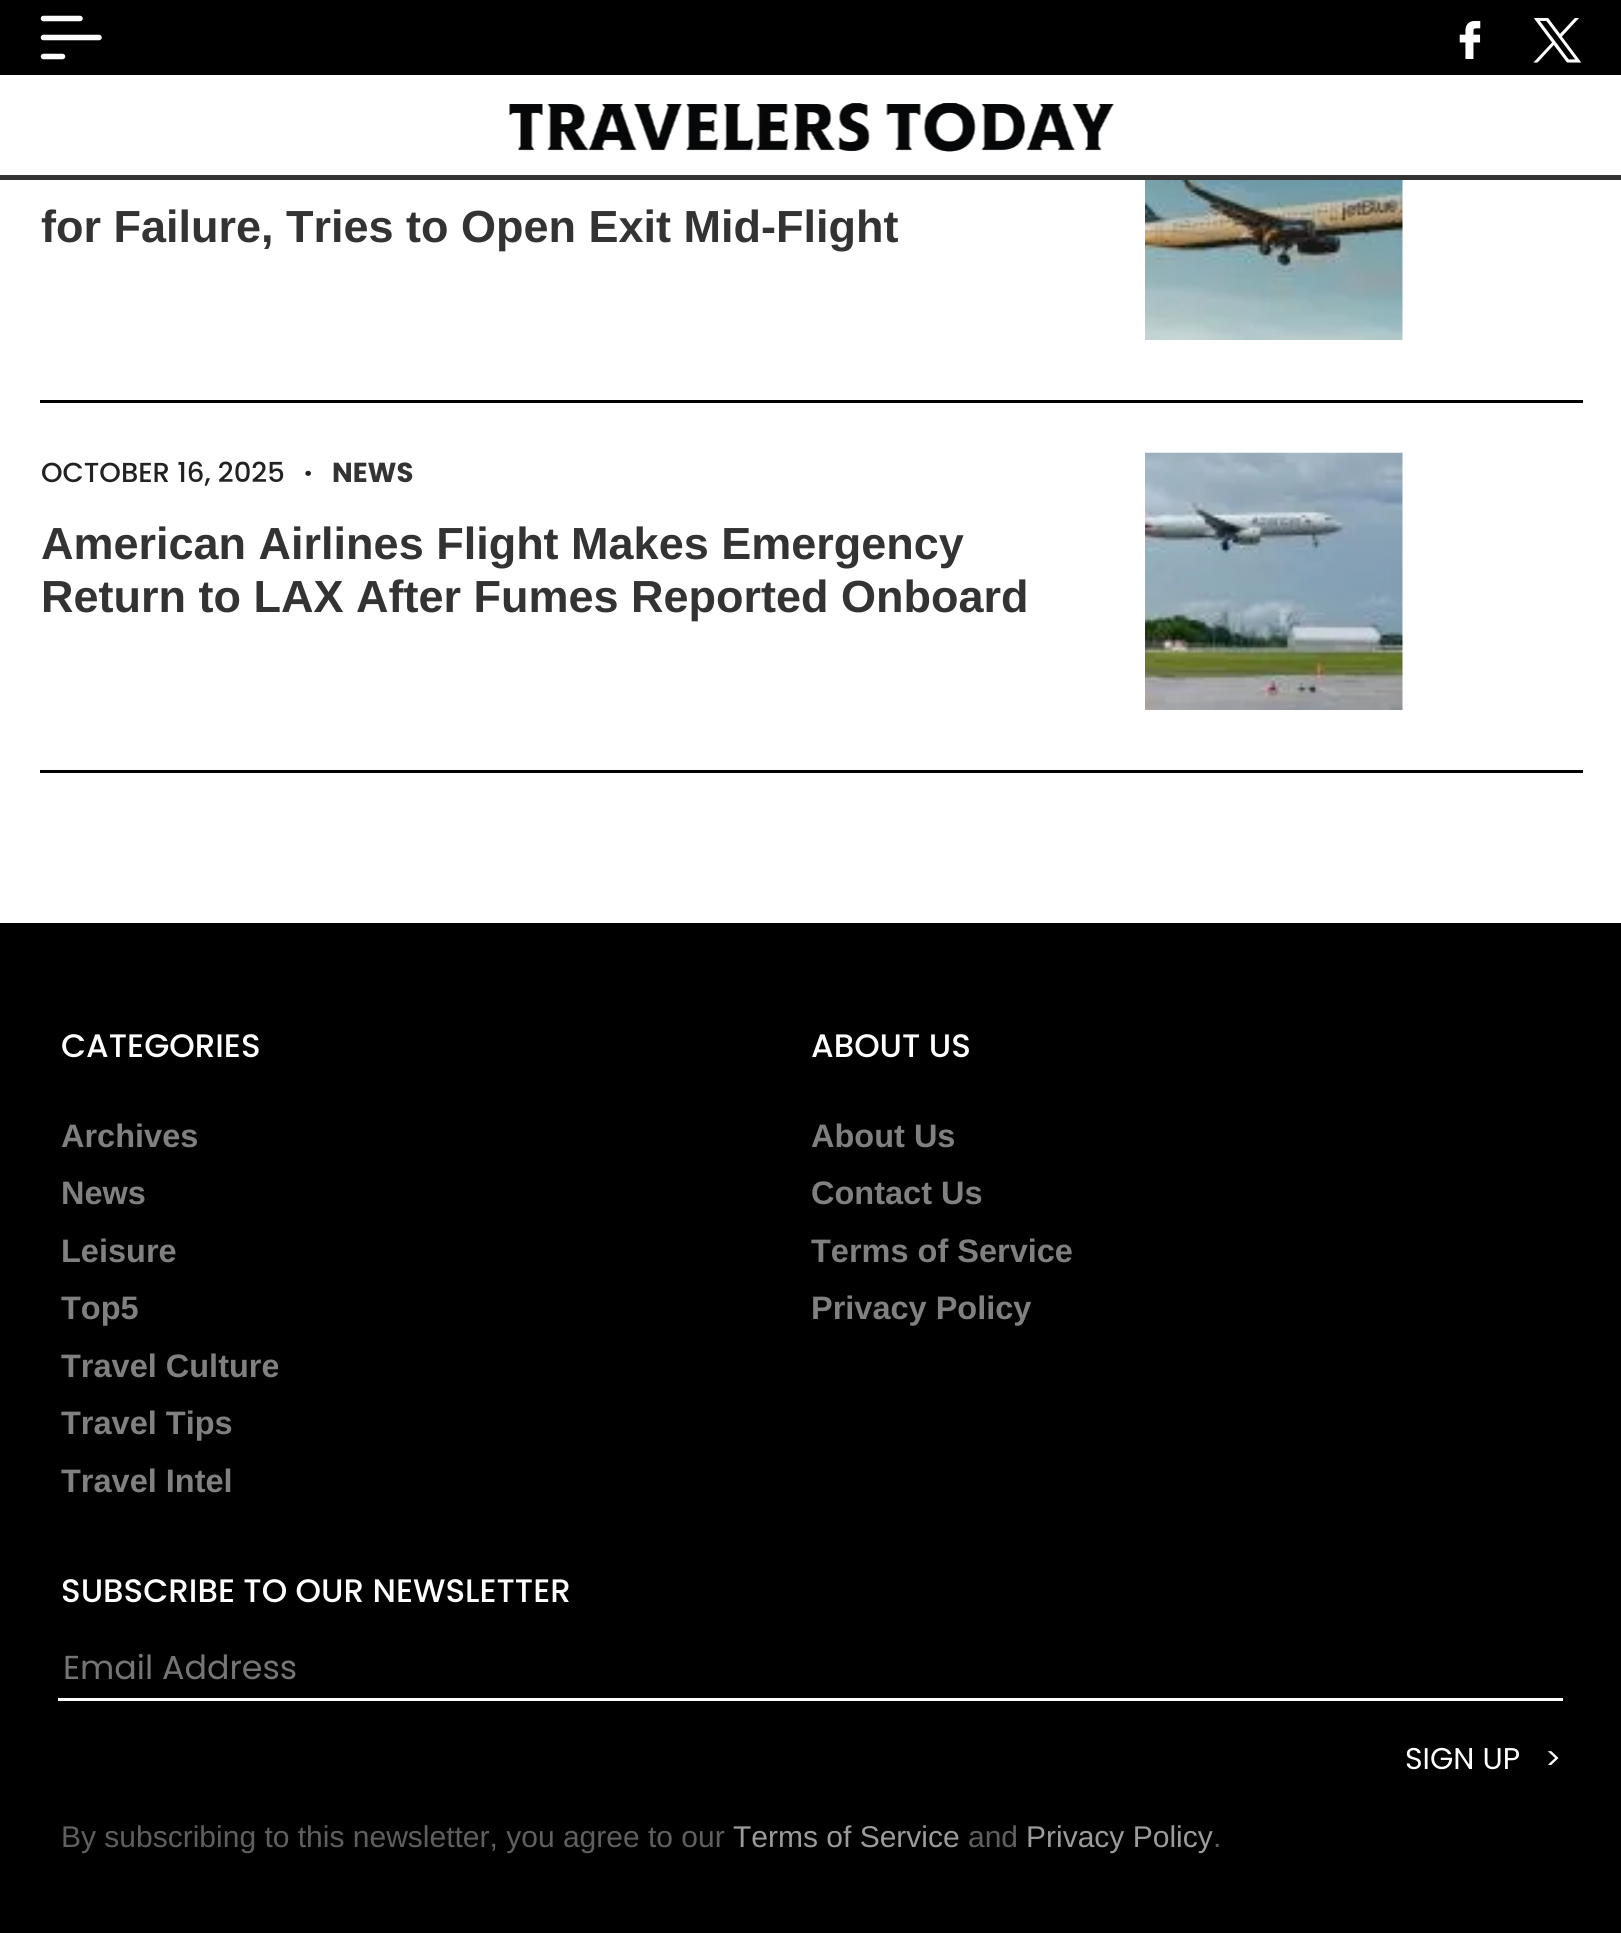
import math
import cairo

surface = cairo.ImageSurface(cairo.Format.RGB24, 1621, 1933)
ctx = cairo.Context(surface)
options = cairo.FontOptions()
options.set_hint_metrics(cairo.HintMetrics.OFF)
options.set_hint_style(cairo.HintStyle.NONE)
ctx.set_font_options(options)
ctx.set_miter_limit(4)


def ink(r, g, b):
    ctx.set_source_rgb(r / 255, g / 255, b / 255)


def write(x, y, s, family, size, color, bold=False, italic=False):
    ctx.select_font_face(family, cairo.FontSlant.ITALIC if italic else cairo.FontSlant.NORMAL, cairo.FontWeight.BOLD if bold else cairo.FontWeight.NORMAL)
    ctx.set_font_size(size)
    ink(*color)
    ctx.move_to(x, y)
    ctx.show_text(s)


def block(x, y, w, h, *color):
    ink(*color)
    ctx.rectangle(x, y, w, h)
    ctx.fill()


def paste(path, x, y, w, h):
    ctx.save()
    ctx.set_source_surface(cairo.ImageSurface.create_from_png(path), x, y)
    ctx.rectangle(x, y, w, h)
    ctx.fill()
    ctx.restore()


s1 = dict(family="Liberation Sans", size=45, color=(51, 51, 51), bold=True)
s2 = dict(family="Poppins Medium", size=27.5, color=(34, 34, 34))
s3 = dict(family="Poppins", size=27.5, color=(34, 34, 34), bold=True)
s4 = dict(family="Poppins", size=27.5, color=(51, 51, 51), bold=True)
s5 = dict(family="Poppins Medium", size=32.5, color=(255, 255, 255))
s6 = dict(family="Liberation Sans", size=32.5, color=(128, 128, 128), bold=True)
s7 = dict(family="Poppins", size=33.25, color=(117, 117, 117))
s8 = dict(family="Poppins", size=30, color=(255, 255, 255))
s9 = dict(family="Liberation Sans", size=30, color=(95, 95, 95))
s10 = dict(family="Liberation Sans", size=30, color=(155, 155, 155))

ink(255, 255, 255)
ctx.paint()
block(0, 0, 1621, 75, 0, 0, 0)
ctx.new_path()
ctx.move_to(43.5, 18.5)
ctx.line_to(80, 18.5)
ctx.move_to(43.5, 56.5)
ctx.line_to(62.5, 56.5)
ctx.move_to(43.5, 37.5)
ctx.line_to(99, 37.5)
ink(255, 255, 255)
ctx.set_line_width(5.5)
ctx.set_line_cap(cairo.LineCap.ROUND)
ctx.stroke()
paste("pic1.png", 1459, 21, 22, 38)
paste("pic2.png", 1533, 18, 49, 45)
block(0, 175, 1621, 5, 51, 51, 51)
paste("pic3.png", 509, 103, 605, 49)
block(40, 400, 1543, 3, 0, 0, 0)
write(41, 242, "for Failure, Tries to Open Exit Mid-Flight", **s1)
paste("pic4.png", 1145, 180, 258, 160)
block(40, 770, 1543, 3, 0, 0, 0)
write(41, 482, "OCTOBER 16, 2025", **s2)
write(304, 482, "·", **s3)
write(332, 482, "NEWS", **s4)
write(41, 559, "American Airlines Flight Makes Emergency", **s1)
write(41, 612, "Return to LAX After Fumes Reported Onboard", **s1)
paste("pic5.png", 1145, 452, 258, 258)
block(0, 923, 1621, 1010, 0, 0, 0)
write(61, 1057, "CATEGORIES", **s5)
write(61, 1147, "Archives", **s6)
write(61, 1204, "News", **s6)
write(61, 1262, "Leisure", **s6)
write(61, 1319, "Top5", **s6)
write(61, 1377, "Travel Culture", **s6)
write(61, 1434, "Travel Tips", **s6)
write(61, 1492, "Travel Intel", **s6)
write(811, 1057, "ABOUT US", **s5)
write(811, 1147, "About Us", **s6)
write(811, 1204, "Contact Us", **s6)
write(811, 1262, "Terms of Service", **s6)
write(811, 1319, "Privacy Policy", **s6)
write(61, 1602, "SUBSCRIBE TO OUR NEWSLETTER", **s5)
block(58, 1698, 1505, 3, 255, 255, 255)
write(63, 1679, "Email Address", **s7)
write(1405, 1769, "SIGN UP", **s8)
write(1545, 1769, ">", **s8)
write(61, 1847, "By subscribing to this newsletter, you agree to our", **s9)
write(733, 1847, "Terms of Service", **s10)
write(968, 1847, "and", **s9)
write(1026, 1847, "Privacy Policy", **s10)
write(1213, 1847, ".", **s9)
surface.write_to_png("screenshot.png")
